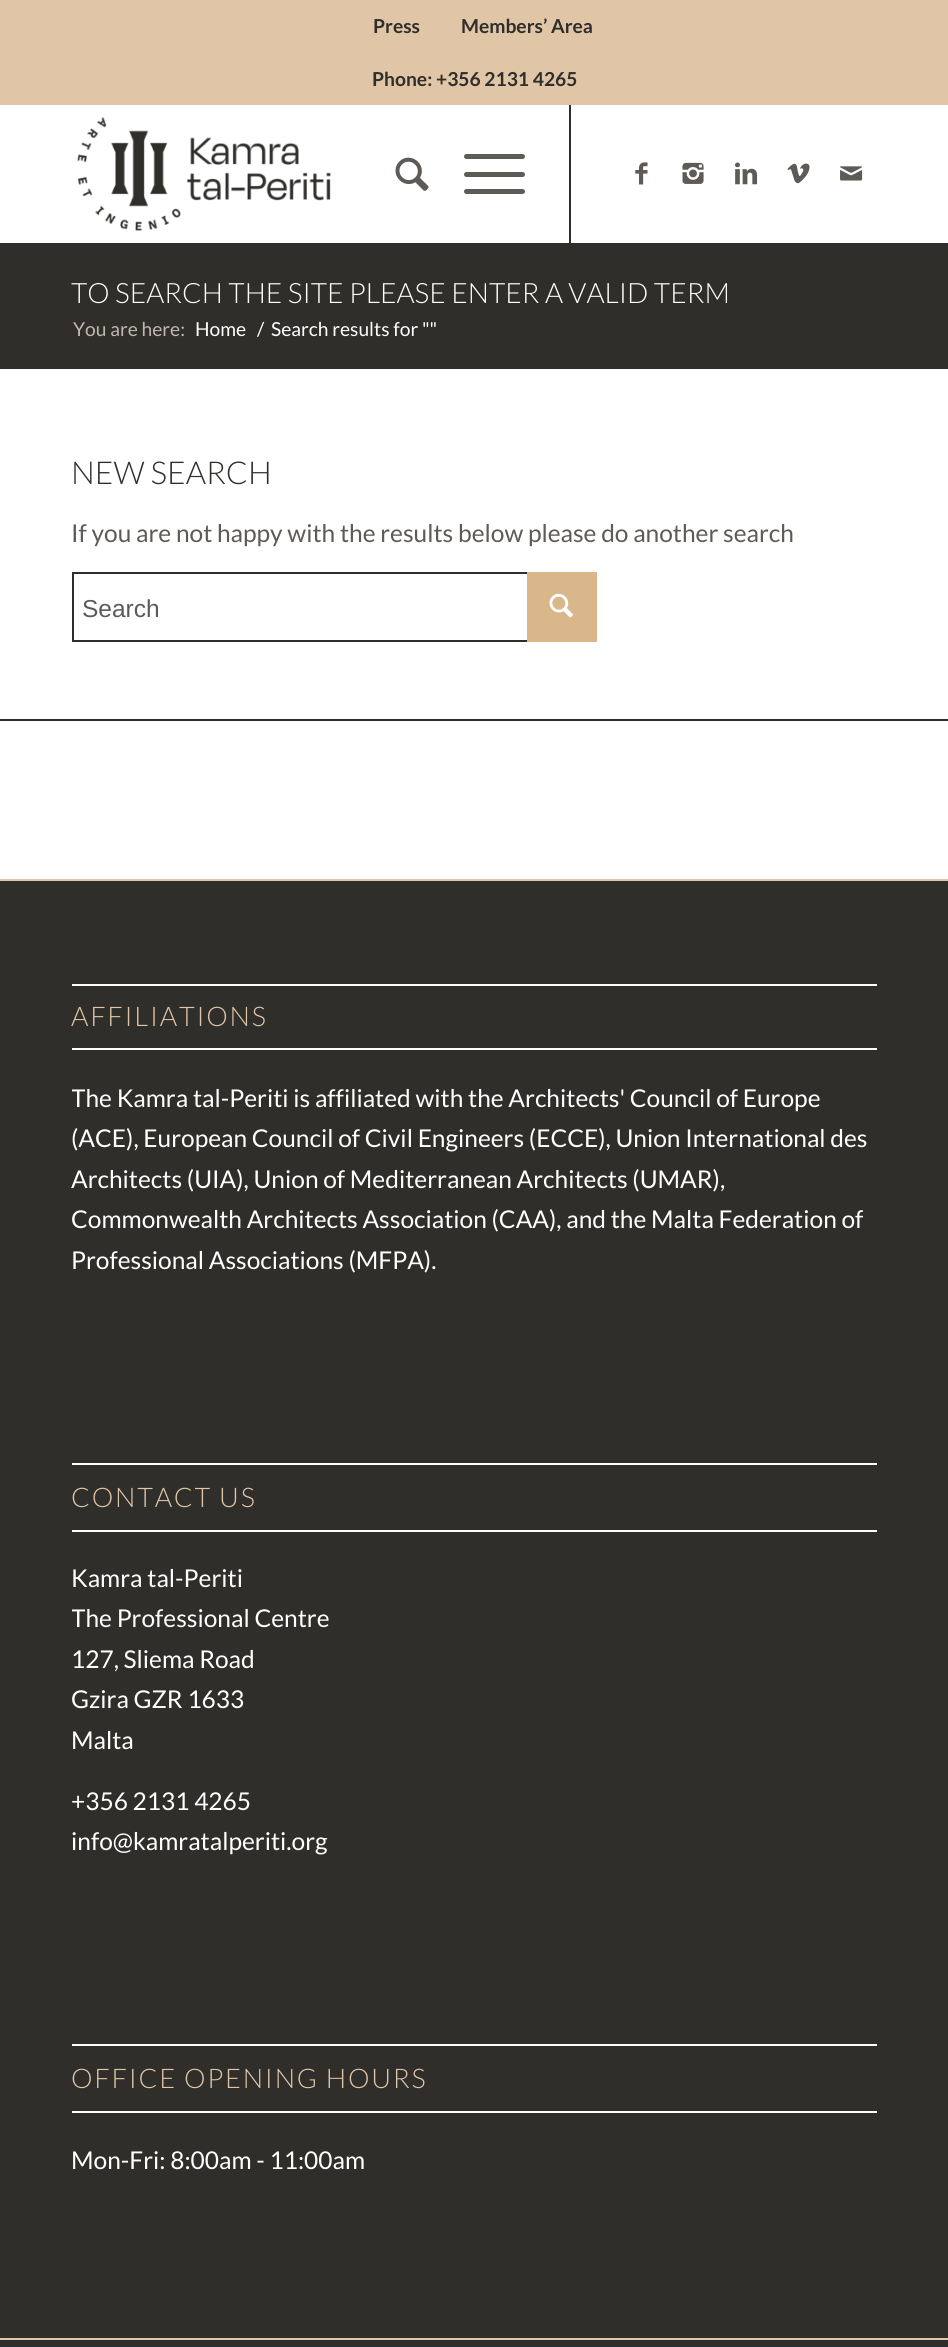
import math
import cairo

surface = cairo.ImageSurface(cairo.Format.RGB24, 948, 2347)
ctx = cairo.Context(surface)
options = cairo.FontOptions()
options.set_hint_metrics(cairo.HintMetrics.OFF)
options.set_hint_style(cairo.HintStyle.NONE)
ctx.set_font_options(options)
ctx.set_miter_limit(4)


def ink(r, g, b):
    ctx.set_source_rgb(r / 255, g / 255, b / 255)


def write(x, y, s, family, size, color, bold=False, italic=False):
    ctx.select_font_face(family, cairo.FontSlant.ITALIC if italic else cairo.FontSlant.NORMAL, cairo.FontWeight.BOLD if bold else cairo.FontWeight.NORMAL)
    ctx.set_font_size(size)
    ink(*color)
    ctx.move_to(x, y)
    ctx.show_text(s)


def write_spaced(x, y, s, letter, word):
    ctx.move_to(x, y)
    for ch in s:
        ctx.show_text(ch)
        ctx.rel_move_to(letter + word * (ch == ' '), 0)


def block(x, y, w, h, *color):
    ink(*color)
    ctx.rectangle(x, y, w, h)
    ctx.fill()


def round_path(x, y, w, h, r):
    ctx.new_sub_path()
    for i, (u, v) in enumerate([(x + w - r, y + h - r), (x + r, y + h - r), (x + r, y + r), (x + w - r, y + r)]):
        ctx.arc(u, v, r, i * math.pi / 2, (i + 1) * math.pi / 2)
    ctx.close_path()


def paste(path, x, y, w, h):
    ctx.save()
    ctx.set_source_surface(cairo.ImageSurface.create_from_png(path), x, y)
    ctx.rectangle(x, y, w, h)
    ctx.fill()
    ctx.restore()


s1 = dict(family="Lato", size=19.25, color=(47, 46, 43), bold=True)
s2 = dict(family="Lato Light", size=28, color=(255, 255, 255))
s3 = dict(family="Lato", size=19.25, color=(191, 183, 172))
s4 = dict(family="Lato", size=19.25, color=(255, 255, 255))
s5 = dict(family="Lato Light", size=31.5, color=(47, 46, 43))
s6 = dict(family="Lato", size=24.5, color=(94, 91, 86))
s7 = dict(family="Liberation Sans", size=24.5, color=(94, 91, 86))
s8 = dict(family="Lato", size=24.5, color=(255, 255, 255))

ink(255, 255, 255)
ctx.paint()
block(569, 103, 2, 140, 47, 46, 43)
block(0, 0, 948, 105, 224, 197, 166)
write(373, 33, "Press", **s1)
write(461, 33, "Members’ Area", **s1)
write(372, 86, "Phone: +356 2131 4265", **s1)
paste("pic1.png", 77, 117, 254, 114)
paste("pic2.png", 395, 157, 34, 34)
ink(94, 91, 86)
round_path(464, 172, 61, 5, 2.5)
ctx.fill()
round_path(464, 154, 61, 5, 2.5)
ctx.fill()
round_path(464, 189, 61, 5, 2.5)
ctx.fill()
paste("pic3.png", 635, 162, 13, 23)
paste("pic4.png", 682, 162, 22, 22)
paste("pic5.png", 735, 162, 23, 23)
paste("pic6.png", 787, 163, 23, 21)
paste("pic7.png", 840, 166, 23, 15)
block(0, 243, 948, 126, 47, 46, 43)
write(71, 303, "TO SEARCH THE SITE PLEASE ENTER A VALID TERM", **s2)
write(73, 336, "You are here:", **s3)
write(195, 336, "Home", **s4)
write(257, 336, "/", **s4)
write(271, 336, "Search results for \"\"", **s4)
write(71, 484, "NEW SEARCH", **s5)
write(71, 542, "If you are not happy with the results below please do another search", **s6)
ctx.rectangle(73, 573, 523, 68)
ink(47, 46, 43)
ctx.stroke()
write(82, 617, "Search", **s7)
block(527, 572, 70, 70, 218, 183, 139)
paste("pic8.png", 549, 593, 24, 25)
block(0, 719, 948, 2, 47, 46, 43)
block(0, 881, 948, 1457, 47, 46, 43)
block(0, 879, 948, 2, 224, 197, 166)
block(72, 984, 805, 2, 255, 255, 255)
block(72, 1048, 805, 2, 255, 255, 255)
ctx.select_font_face("Lato Light")
ctx.set_font_size(27)
ink(224, 197, 166)
write_spaced(71, 1026, "AFFILIATIONS", 1.75, 0)
ctx.save()
ctx.rectangle(72, 959, 805, 341)
ctx.clip()
write(71, 1107, "The Kamra tal-Periti is affiliated with the Architects' Council of Europe", **s8)
ctx.restore()
write(71, 1147, "(ACE), European Council of Civil Engineers (ECCE), Union International des", **s8)
write(71, 1188, "Architects (UIA), Union of Mediterranean Architects (UMAR),", **s8)
write(71, 1228, "Commonwealth Architects Association (CAA), and the Malta Federation of", **s8)
write(71, 1269, "Professional Associations (MFPA).", **s8)
block(72, 1463, 805, 2, 255, 255, 255)
block(72, 1530, 805, 2, 255, 255, 255)
ctx.select_font_face("Lato Light")
ctx.set_font_size(27)
ink(224, 197, 166)
write_spaced(71, 1507, "CONTACT US", 1.75, 0)
write(71, 1587, "Kamra tal-Periti", **s8)
ctx.save()
ctx.rectangle(72, 1440, 805, 441)
ctx.clip()
write(71, 1627, "The Professional Centre", **s8)
ctx.restore()
write(71, 1668, "127, Sliema Road", **s8)
write(71, 1708, "Gzira GZR 1633", **s8)
write(71, 1749, "Malta", **s8)
write(71, 1810, "+356 2131 4265", **s8)
write(71, 1850, "info@kamratalperiti.org", **s8)
block(72, 2044, 805, 2, 255, 255, 255)
block(72, 2111, 805, 2, 255, 255, 255)
ctx.select_font_face("Lato Light")
ctx.set_font_size(27)
ink(224, 197, 166)
write_spaced(71, 2088, "OFFICE OPENING HOURS", 1.75, 0)
write(71, 2169, "Mon-Fri: 8:00am - 11:00am", **s8)
block(0, 2340, 948, 7, 47, 46, 43)
block(0, 2338, 948, 2, 224, 197, 166)
surface.write_to_png("screenshot.png")
